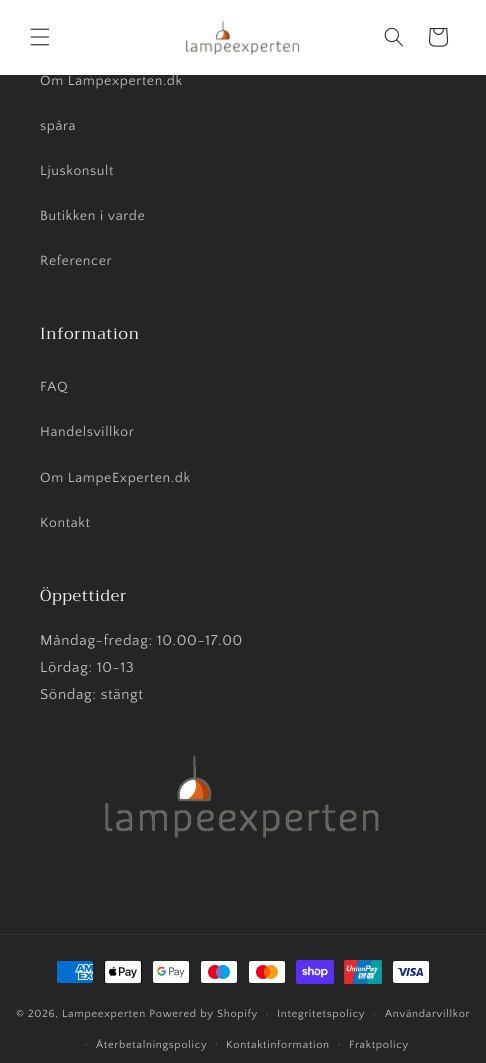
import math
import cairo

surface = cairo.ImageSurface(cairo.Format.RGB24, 486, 1063)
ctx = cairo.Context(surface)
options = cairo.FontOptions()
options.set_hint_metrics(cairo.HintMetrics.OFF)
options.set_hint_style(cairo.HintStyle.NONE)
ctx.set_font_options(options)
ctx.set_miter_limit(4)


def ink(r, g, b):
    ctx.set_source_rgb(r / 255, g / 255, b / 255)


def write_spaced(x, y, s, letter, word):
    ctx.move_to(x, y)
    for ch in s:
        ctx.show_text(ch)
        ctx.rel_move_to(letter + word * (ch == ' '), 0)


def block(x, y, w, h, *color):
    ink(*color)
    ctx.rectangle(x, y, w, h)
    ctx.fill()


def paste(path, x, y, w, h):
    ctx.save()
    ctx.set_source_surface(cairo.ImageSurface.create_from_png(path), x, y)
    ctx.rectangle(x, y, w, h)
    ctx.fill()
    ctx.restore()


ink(37, 37, 37)
ctx.paint()
ctx.select_font_face("Quattrocento Sans")
ctx.set_font_size(14)
ink(189, 186, 186)
write_spaced(40, 85, "Om Lampexperten.dk", 0.6, 0)
block(0, 0, 486, 75, 255, 255, 255)
paste("pic1.png", 30, 28, 20, 18)
paste("pic2.png", 185, 20, 115, 35)
paste("pic3.png", 384, 27, 19, 20)
paste("pic4.png", 429, 28, 20, 19)
ink(189, 186, 186)
write_spaced(40, 130, "spåra", 0.6, 0)
write_spaced(40, 175, "Ljuskonsult", 0.6, 0)
write_spaced(40, 220, "Butikken i varde", 0.6, 0)
write_spaced(40, 265, "Referencer", 0.6, 0)
ctx.select_font_face("Trirong")
ctx.set_font_size(16)
ink(239, 236, 236)
write_spaced(40, 339, "Information", 0.6, 0)
ctx.select_font_face("Quattrocento Sans")
ctx.set_font_size(14)
ink(189, 186, 186)
write_spaced(40, 391, "FAQ", 0.6, 0)
write_spaced(40, 436, "Handelsvillkor", 0.6, 0)
write_spaced(40, 482, "Om LampeExperten.dk", 0.6, 0)
write_spaced(40, 527, "Kontakt", 0.6, 0)
ctx.select_font_face("Trirong")
ctx.set_font_size(16)
ink(239, 236, 236)
write_spaced(40, 601, "Öppettider", 0.6, 0)
ctx.select_font_face("Quattrocento Sans")
ctx.set_font_size(15)
ink(189, 186, 186)
write_spaced(40, 645, "Måndag-fredag: 10.00-17.00", 0.6, 0)
write_spaced(40, 672, "Lördag: 10-13", 0.6, 0)
write_spaced(40, 699, "Söndag: stängt", 0.6, 0)
paste("pic5.png", 105, 755, 274, 83)
block(0, 934, 486, 1, 53, 53, 53)
paste("pic6.png", 57, 961, 36, 22)
paste("pic7.png", 104, 960, 38, 24)
paste("pic8.png", 153, 961, 36, 22)
paste("pic9.png", 201, 961, 36, 22)
paste("pic10.png", 249, 961, 36, 22)
paste("pic11.png", 296, 960, 38, 24)
paste("pic12.png", 344, 960, 38, 24)
paste("pic13.png", 393, 961, 36, 22)
ctx.set_font_size(11)
ink(189, 186, 186)
write_spaced(16, 1017, "© 2026, Lampeexperten Powered by Shopify", 0.7, 0)
ctx.set_font_size(10)
write_spaced(266, 1017, "·", 0.7, 0)
ctx.set_font_size(11)
write_spaced(277, 1017, "Integritetspolicy", 0.7, 0)
ctx.set_font_size(10)
write_spaced(373, 1017, "·", 0.7, 0)
ctx.set_font_size(11)
write_spaced(385, 1017, "Användarvillkor", 0.7, 0)
ctx.set_font_size(10)
write_spaced(85, 1047, "·", 0.7, 0)
ctx.set_font_size(11)
write_spaced(96, 1048, "Återbetalningspolicy", 0.7, 0)
ctx.set_font_size(10)
write_spaced(215, 1047, "·", 0.7, 0)
ctx.set_font_size(11)
write_spaced(226, 1048, "Kontaktinformation", 0.7, 0)
ctx.set_font_size(10)
write_spaced(338, 1047, "·", 0.7, 0)
ctx.set_font_size(11)
write_spaced(349, 1048, "Fraktpolicy", 0.7, 0)
surface.write_to_png("screenshot.png")
